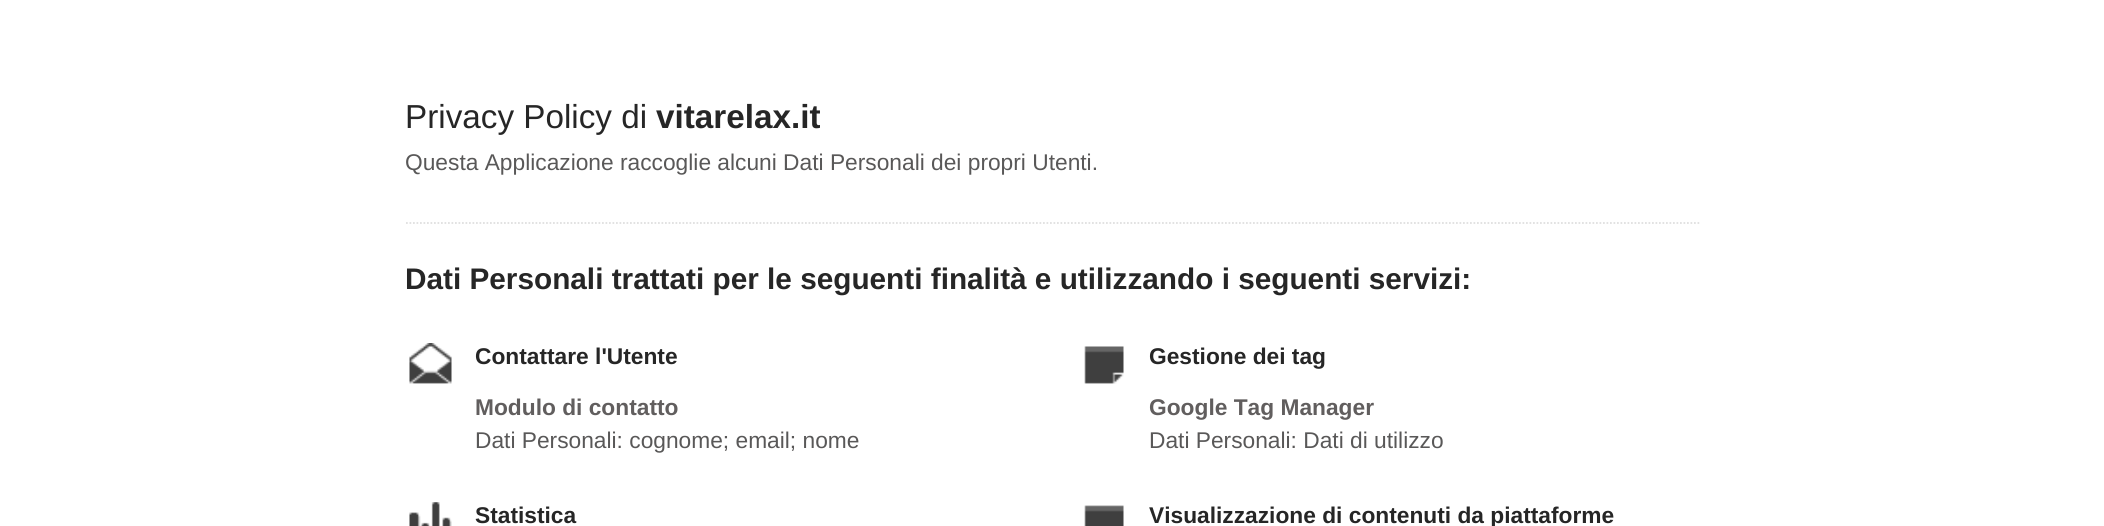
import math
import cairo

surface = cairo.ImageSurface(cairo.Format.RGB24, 2104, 526)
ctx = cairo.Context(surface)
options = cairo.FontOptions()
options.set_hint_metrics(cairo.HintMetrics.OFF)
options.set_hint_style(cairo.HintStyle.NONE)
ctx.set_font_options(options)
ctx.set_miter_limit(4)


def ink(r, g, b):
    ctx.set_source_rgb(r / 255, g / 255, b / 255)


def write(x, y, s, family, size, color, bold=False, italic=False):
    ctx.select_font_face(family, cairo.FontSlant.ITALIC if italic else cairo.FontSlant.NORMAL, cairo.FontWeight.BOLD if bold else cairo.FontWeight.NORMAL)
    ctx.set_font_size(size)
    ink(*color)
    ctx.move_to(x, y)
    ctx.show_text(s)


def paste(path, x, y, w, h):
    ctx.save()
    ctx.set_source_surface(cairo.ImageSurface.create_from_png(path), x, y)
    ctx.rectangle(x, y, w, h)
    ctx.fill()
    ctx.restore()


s1 = dict(family="Liberation Sans", size=33.25, color=(38, 38, 38))
s2 = dict(family="Liberation Sans", size=33.25, color=(38, 38, 38), bold=True)
s3 = dict(family="Liberation Sans", size=22.75, color=(89, 88, 88))
s4 = dict(family="Liberation Sans", size=29.75, color=(38, 38, 38), bold=True)
s5 = dict(family="Liberation Sans", size=22.75, color=(38, 38, 38), bold=True)
s6 = dict(family="Liberation Sans", size=22.75, color=(97, 94, 94), bold=True)

ink(255, 255, 255)
ctx.paint()
ctx.new_path()
ctx.move_to(406, 223)
ctx.line_to(1701, 223)
ink(223, 223, 223)
ctx.set_line_width(1.8)
ctx.set_dash([1.75, 1.75])
ctx.stroke()
write(405, 128, "Privacy Policy di", **s1)
write(656, 128, "vitarelax.it", **s2)
write(405, 170, "Questa Applicazione raccoglie alcuni Dati Personali dei propri Utenti.", **s3)
write(405, 289, "Dati Personali trattati per le seguenti finalità e utilizzando i seguenti servizi:", **s4)
paste("pic1.png", 409, 343, 43, 41)
write(475, 364, "Contattare l'Utente", **s5)
write(475, 415, "Modulo di contatto", **s6)
write(475, 448, "Dati Personali: cognome; email; nome", **s3)
paste("pic2.png", 1084, 346, 40, 38)
write(1149, 364, "Gestione dei tag", **s5)
write(1149, 415, "Google Tag Manager", **s6)
write(1149, 448, "Dati Personali: Dati di utilizzo", **s3)
paste("pic3.png", 409, 502, 43, 24)
write(475, 523, "Statistica", **s5)
paste("pic4.png", 1084, 505, 40, 21)
write(1149, 523, "Visualizzazione di contenuti da piattaforme", **s5)
surface.write_to_png("screenshot.png")
